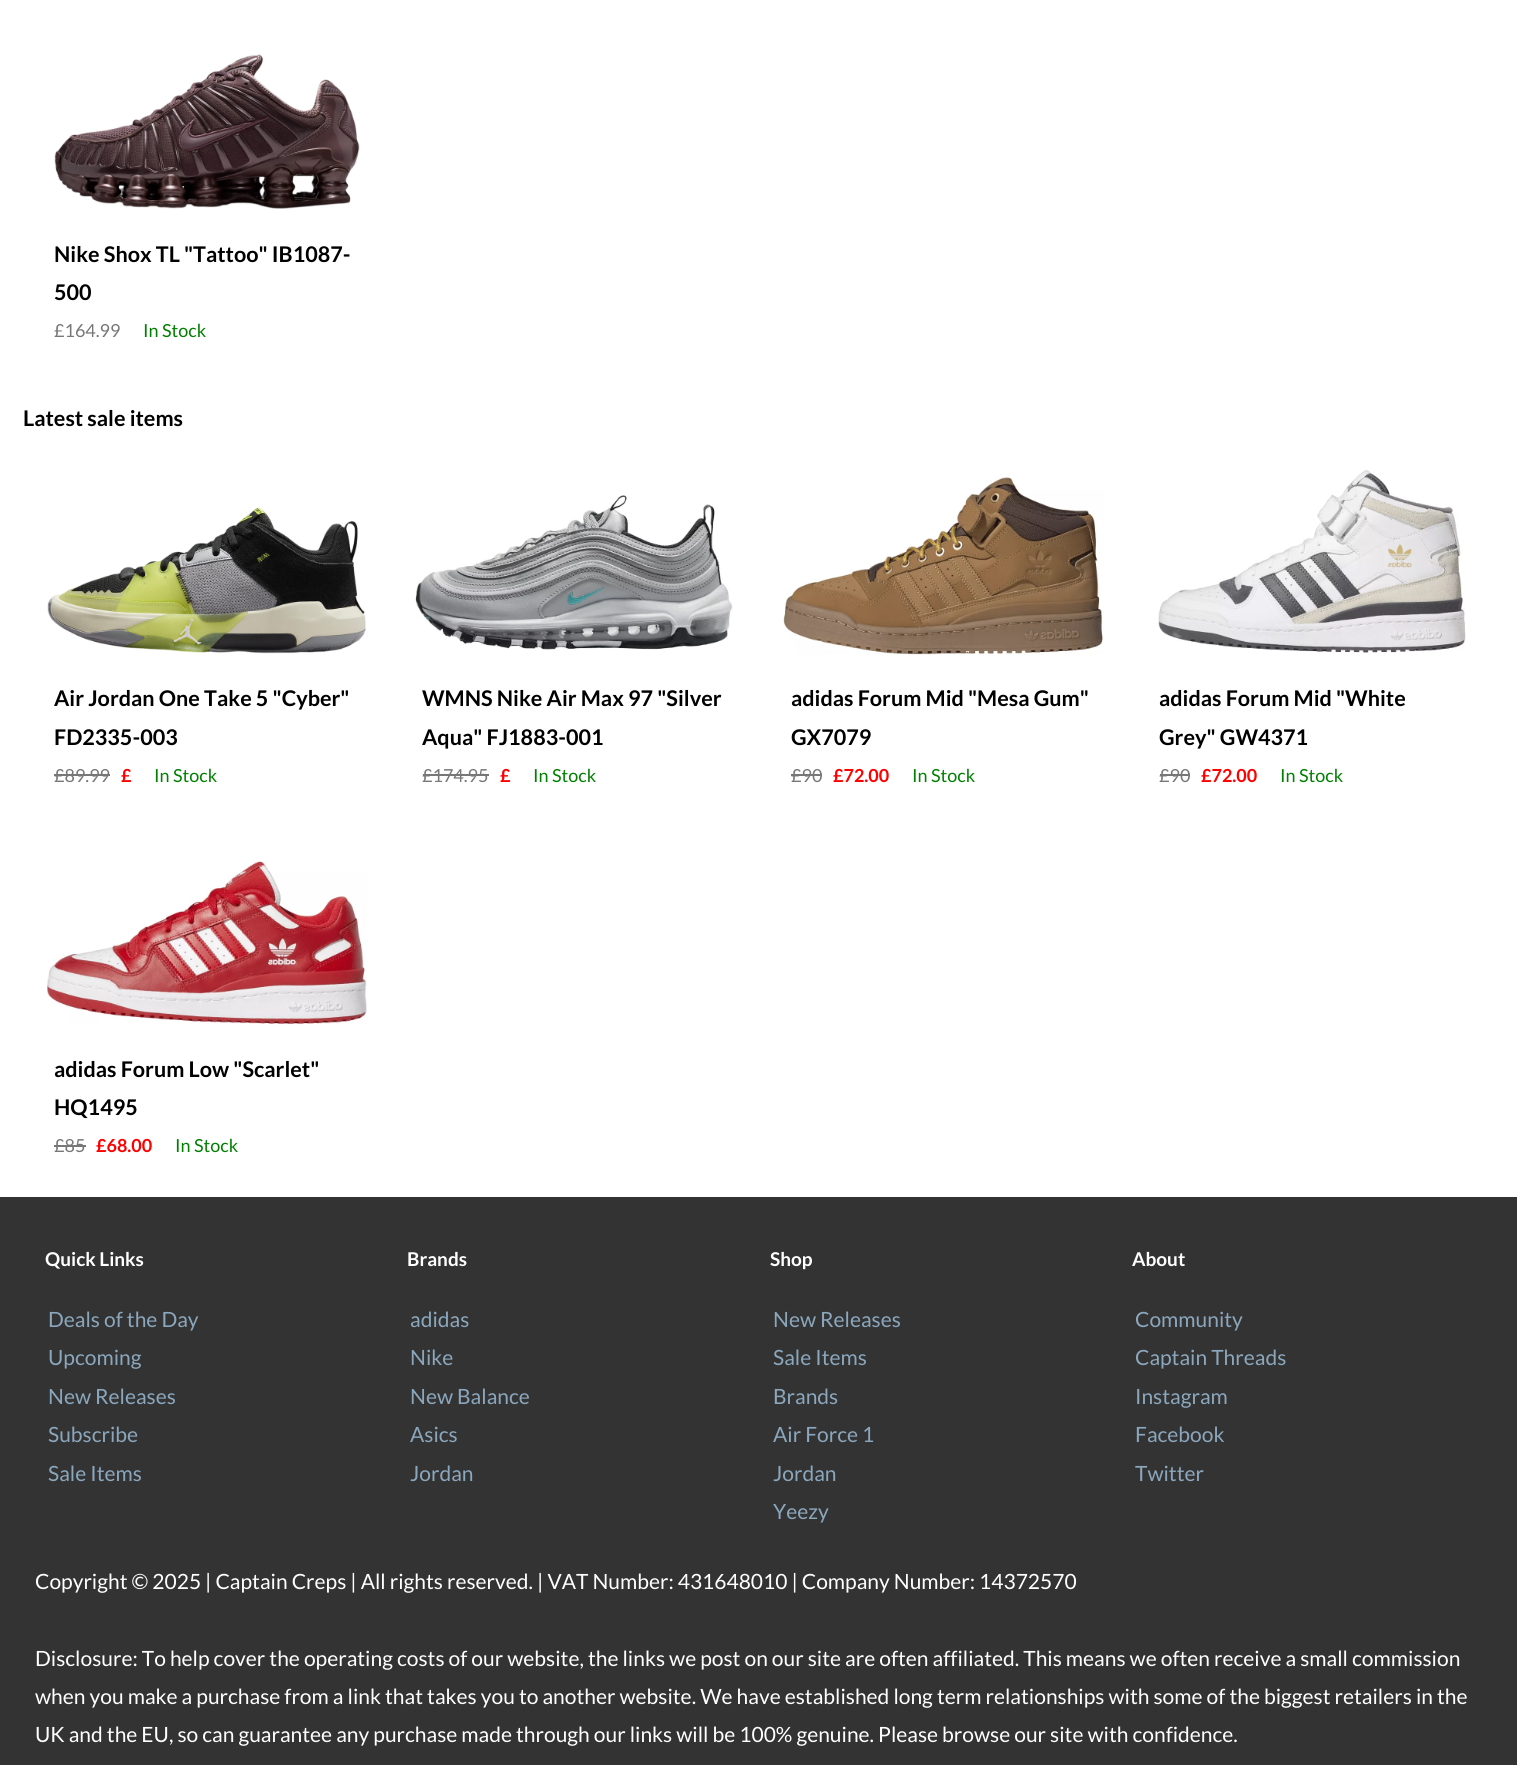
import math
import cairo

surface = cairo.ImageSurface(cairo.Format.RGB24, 1517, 1765)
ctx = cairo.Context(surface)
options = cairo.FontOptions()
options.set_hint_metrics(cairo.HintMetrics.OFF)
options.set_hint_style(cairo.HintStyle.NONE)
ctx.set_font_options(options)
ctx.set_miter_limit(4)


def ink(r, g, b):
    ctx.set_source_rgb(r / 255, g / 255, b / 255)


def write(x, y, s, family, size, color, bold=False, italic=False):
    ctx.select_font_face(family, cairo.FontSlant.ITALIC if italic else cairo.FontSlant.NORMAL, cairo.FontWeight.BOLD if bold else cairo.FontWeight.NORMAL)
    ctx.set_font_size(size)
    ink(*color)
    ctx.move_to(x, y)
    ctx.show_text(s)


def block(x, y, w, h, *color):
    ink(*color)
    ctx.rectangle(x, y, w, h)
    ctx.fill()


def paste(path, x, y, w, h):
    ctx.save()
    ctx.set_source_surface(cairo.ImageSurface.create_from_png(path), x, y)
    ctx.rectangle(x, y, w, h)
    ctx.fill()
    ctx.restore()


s1 = dict(family="Lato", size=21.6, color=(0, 0, 0), bold=True)
s2 = dict(family="Lato", size=18, color=(119, 119, 119))
s3 = dict(family="Lato", size=18, color=(0, 128, 0))
s4 = dict(family="Lato", size=18, color=(255, 0, 0), bold=True)
s5 = dict(family="Lato", size=19, color=(255, 255, 255), bold=True)
s6 = dict(family="Lato", size=21, color=(139, 167, 189))
s7 = dict(family="Lato", size=21, color=(255, 255, 255))

ink(255, 255, 255)
ctx.paint()
paste("pic1.png", 54, 54, 306, 155)
write(54, 262, "Nike Shox TL \"Tattoo\" IB1087-", **s1)
write(54, 300, "500", **s1)
write(54, 337, "£164.99", **s2)
write(143, 337, "In Stock", **s3)
write(23, 426, "Latest sale items", **s1)
paste("pic2.png", 47, 507, 319, 147)
write(54, 706, "Air Jordan One Take 5 \"Cyber\"", **s1)
write(54, 745, "FD2335-003", **s1)
write(54, 782, "£89.99", **s2)
block(54, 774, 56, 2, 119, 119, 119)
write(121, 782, "£", **s4)
write(154, 782, "In Stock", **s3)
paste("pic3.png", 415, 495, 318, 155)
write(422, 706, "WMNS Nike Air Max 97 \"Silver", **s1)
write(422, 745, "Aqua\" FJ1883-001", **s1)
write(422, 782, "£174.95", **s2)
block(423, 774, 66, 2, 119, 119, 119)
write(500, 782, "£", **s4)
write(533, 782, "In Stock", **s3)
paste("pic4.png", 783, 477, 321, 178)
write(791, 706, "adidas Forum Mid \"Mesa Gum\"", **s1)
write(791, 745, "GX7079", **s1)
write(791, 782, "£90", **s2)
block(791, 774, 31, 2, 119, 119, 119)
write(833, 782, "£72.00", **s4)
write(912, 782, "In Stock", **s3)
paste("pic5.png", 1158, 470, 308, 183)
write(1159, 706, "adidas Forum Mid \"White", **s1)
write(1159, 745, "Grey\" GW4371", **s1)
write(1159, 782, "£90", **s2)
block(1160, 774, 30, 2, 119, 119, 119)
write(1201, 782, "£72.00", **s4)
write(1280, 782, "In Stock", **s3)
paste("pic6.png", 47, 861, 320, 164)
write(54, 1077, "adidas Forum Low \"Scarlet\"", **s1)
write(54, 1115, "HQ1495", **s1)
write(54, 1152, "£85", **s2)
block(54, 1145, 32, 2, 119, 119, 119)
write(96, 1152, "£68.00", **s4)
write(175, 1152, "In Stock", **s3)
block(0, 1197, 1517, 568, 51, 51, 51)
write(45, 1266, "Quick Links", **s5)
write(48, 1327, "Deals of the Day", **s6)
write(48, 1365, "Upcoming", **s6)
write(48, 1404, "New Releases", **s6)
write(48, 1442, "Subscribe", **s6)
write(48, 1481, "Sale Items", **s6)
write(407, 1266, "Brands", **s5)
write(410, 1327, "adidas", **s6)
write(410, 1365, "Nike", **s6)
write(410, 1404, "New Balance", **s6)
write(410, 1442, "Asics", **s6)
write(410, 1481, "Jordan", **s6)
write(770, 1266, "Shop", **s5)
write(773, 1327, "New Releases", **s6)
write(773, 1365, "Sale Items", **s6)
write(773, 1404, "Brands", **s6)
write(773, 1442, "Air Force 1", **s6)
write(773, 1481, "Jordan", **s6)
write(773, 1519, "Yeezy", **s6)
write(1132, 1266, "About", **s5)
write(1135, 1327, "Community", **s6)
write(1135, 1365, "Captain Threads", **s6)
write(1135, 1404, "Instagram", **s6)
write(1135, 1442, "Facebook", **s6)
write(1135, 1481, "Twitter", **s6)
write(35, 1589, "Copyright © 2025 | Captain Creps | All rights reserved. | VAT Number: 431648010 | Company Number: 14372570", **s7)
write(35, 1666, "Disclosure: To help cover the operating costs of our website, the links we post on our site are often affiliated. This means we often receive a small commission", **s7)
write(35, 1704, "when you make a purchase from a link that takes you to another website. We have established long term relationships with some of the biggest retailers in the", **s7)
write(35, 1742, "UK and the EU, so can guarantee any purchase made through our links will be 100% genuine. Please browse our site with confidence.", **s7)
surface.write_to_png("screenshot.png")
